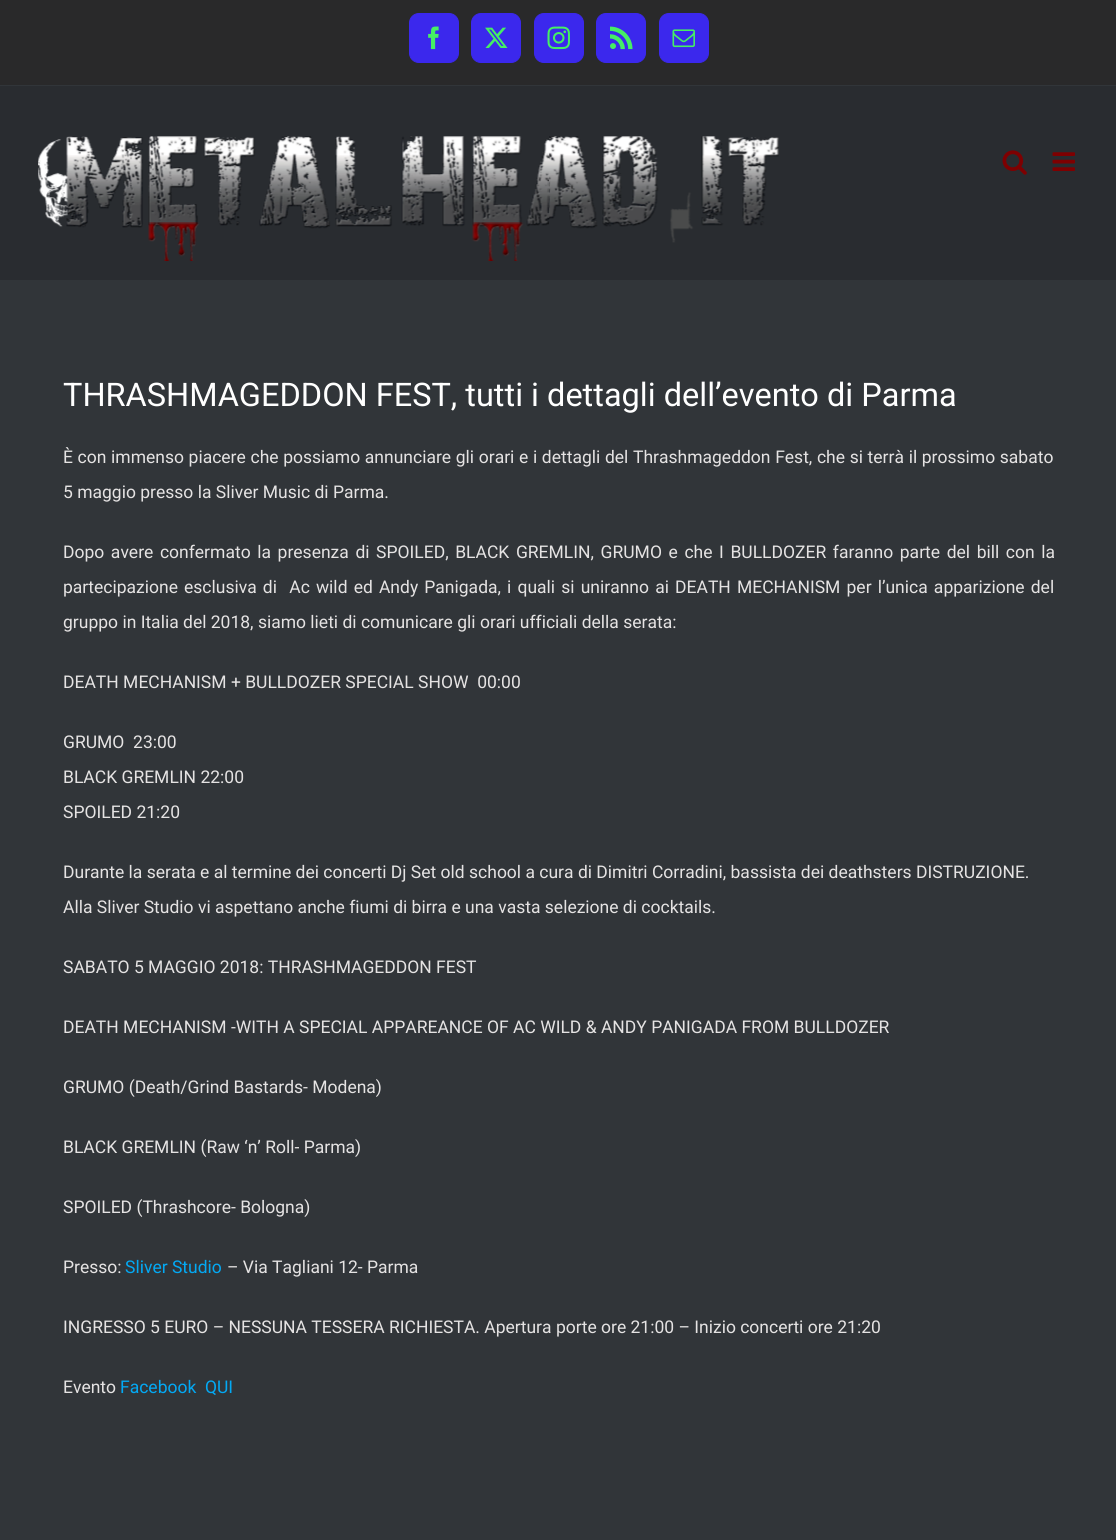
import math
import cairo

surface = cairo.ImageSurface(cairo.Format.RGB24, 1116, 1540)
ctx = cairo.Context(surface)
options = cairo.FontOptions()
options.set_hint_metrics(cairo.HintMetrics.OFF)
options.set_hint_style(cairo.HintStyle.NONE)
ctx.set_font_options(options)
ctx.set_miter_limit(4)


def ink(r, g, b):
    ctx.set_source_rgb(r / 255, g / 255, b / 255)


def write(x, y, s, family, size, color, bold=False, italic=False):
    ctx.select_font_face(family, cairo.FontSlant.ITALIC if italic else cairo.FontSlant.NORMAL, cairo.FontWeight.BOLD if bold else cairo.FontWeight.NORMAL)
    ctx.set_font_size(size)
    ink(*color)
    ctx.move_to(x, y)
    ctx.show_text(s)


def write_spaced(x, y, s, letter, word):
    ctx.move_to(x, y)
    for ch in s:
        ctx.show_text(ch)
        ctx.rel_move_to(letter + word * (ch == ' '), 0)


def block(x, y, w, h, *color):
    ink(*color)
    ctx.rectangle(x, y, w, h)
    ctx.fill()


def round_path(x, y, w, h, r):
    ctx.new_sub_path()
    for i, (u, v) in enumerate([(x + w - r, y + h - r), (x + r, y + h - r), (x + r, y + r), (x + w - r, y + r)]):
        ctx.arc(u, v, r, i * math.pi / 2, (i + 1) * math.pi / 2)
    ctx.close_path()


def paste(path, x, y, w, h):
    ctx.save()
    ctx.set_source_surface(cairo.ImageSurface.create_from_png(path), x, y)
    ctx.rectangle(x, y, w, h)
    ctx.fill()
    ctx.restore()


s1 = dict(family="Roboto", size=32.5, color=(255, 255, 255))
s2 = dict(family="Roboto", size=17.5, color=(229, 227, 227))
s3 = dict(family="Roboto", size=17.5, color=(3, 169, 244))

ink(49, 53, 57)
ctx.paint()
block(0, 0, 1116, 85, 41, 41, 42)
ink(59, 40, 237)
round_path(409.5, 13.5, 49, 49, 9.5)
ctx.fill_preserve()
ctx.set_line_width(1)
ctx.stroke()
paste("pic1.png", 428, 26, 11, 24)
round_path(471.5, 13.5, 49, 49, 9.5)
ctx.fill_preserve()
ctx.stroke()
paste("pic2.png", 485, 27, 23, 21)
round_path(534.5, 13.5, 49, 49, 9.5)
ctx.fill_preserve()
ctx.stroke()
paste("pic3.png", 547, 26, 23, 24)
round_path(596.5, 13.5, 49, 49, 9.5)
ctx.fill_preserve()
ctx.stroke()
paste("pic4.png", 610, 26, 23, 24)
round_path(659.5, 13.5, 49, 49, 9.5)
ctx.fill_preserve()
ctx.stroke()
paste("pic5.png", 672, 29, 23, 19)
block(0, 86, 1116, 194, 41, 44, 48)
paste("pic6.png", 38, 136, 741, 125)
paste("pic7.png", 1002, 150, 25, 25)
paste("pic8.png", 1052, 152, 23, 19)
write(63, 406, "THRASHMAGEDDON FEST, tutti i dettagli dell’evento di Parma", **s1)
ctx.set_font_size(17.5)
ink(229, 227, 227)
write_spaced(63, 463, "È con immenso piacere che possiamo annunciare gli orari e i dettagli del Thrashmageddon Fest, che si terrà il prossimo sabato", 0, 0.3)
write(63, 498, "5 maggio presso la Sliver Music di Parma.", **s2)
write_spaced(63, 558, "Dopo avere confermato la presenza di SPOILED, BLACK GREMLIN, GRUMO e che I BULLDOZER faranno parte del bill con la", 0, 2.25)
write_spaced(63, 593, "partecipazione esclusiva di  Ac wild ed Andy Panigada, i quali si uniranno ai DEATH MECHANISM per l’unica apparizione del", 0, 1.8)
write(63, 628, "gruppo in Italia del 2018, siamo lieti di comunicare gli orari ufficiali della serata:", **s2)
write(63, 688, "DEATH MECHANISM + BULLDOZER SPECIAL SHOW  00:00", **s2)
write(63, 748, "GRUMO  23:00", **s2)
write(63, 783, "BLACK GREMLIN 22:00", **s2)
write(63, 818, "SPOILED 21:20", **s2)
write(63, 878, "Durante la serata e al termine dei concerti Dj Set old school a cura di Dimitri Corradini, bassista dei deathsters DISTRUZIONE.", **s2)
write(63, 913, "Alla Sliver Studio vi aspettano anche fiumi di birra e una vasta selezione di cocktails.", **s2)
write(63, 973, "SABATO 5 MAGGIO 2018: THRASHMAGEDDON FEST", **s2)
write(63, 1033, "DEATH MECHANISM -WITH A SPECIAL APPAREANCE OF AC WILD & ANDY PANIGADA FROM BULLDOZER", **s2)
write(63, 1093, "GRUMO (Death/Grind Bastards- Modena)", **s2)
write(63, 1153, "BLACK GREMLIN (Raw ‘n’ Roll- Parma)", **s2)
write(63, 1213, "SPOILED (Thrashcore- Bologna)", **s2)
write(63, 1273, "Presso:", **s2)
write(125, 1273, "Sliver Studio", **s3)
write(227, 1273, "– Via Tagliani 12- Parma", **s2)
write(63, 1333, "INGRESSO 5 EURO – NESSUNA TESSERA RICHIESTA. Apertura porte ore 21:00 – Inizio concerti ore 21:20", **s2)
write(63, 1393, "Evento", **s2)
write(120, 1393, "Facebook  QUI", **s3)
surface.write_to_png("screenshot.png")
